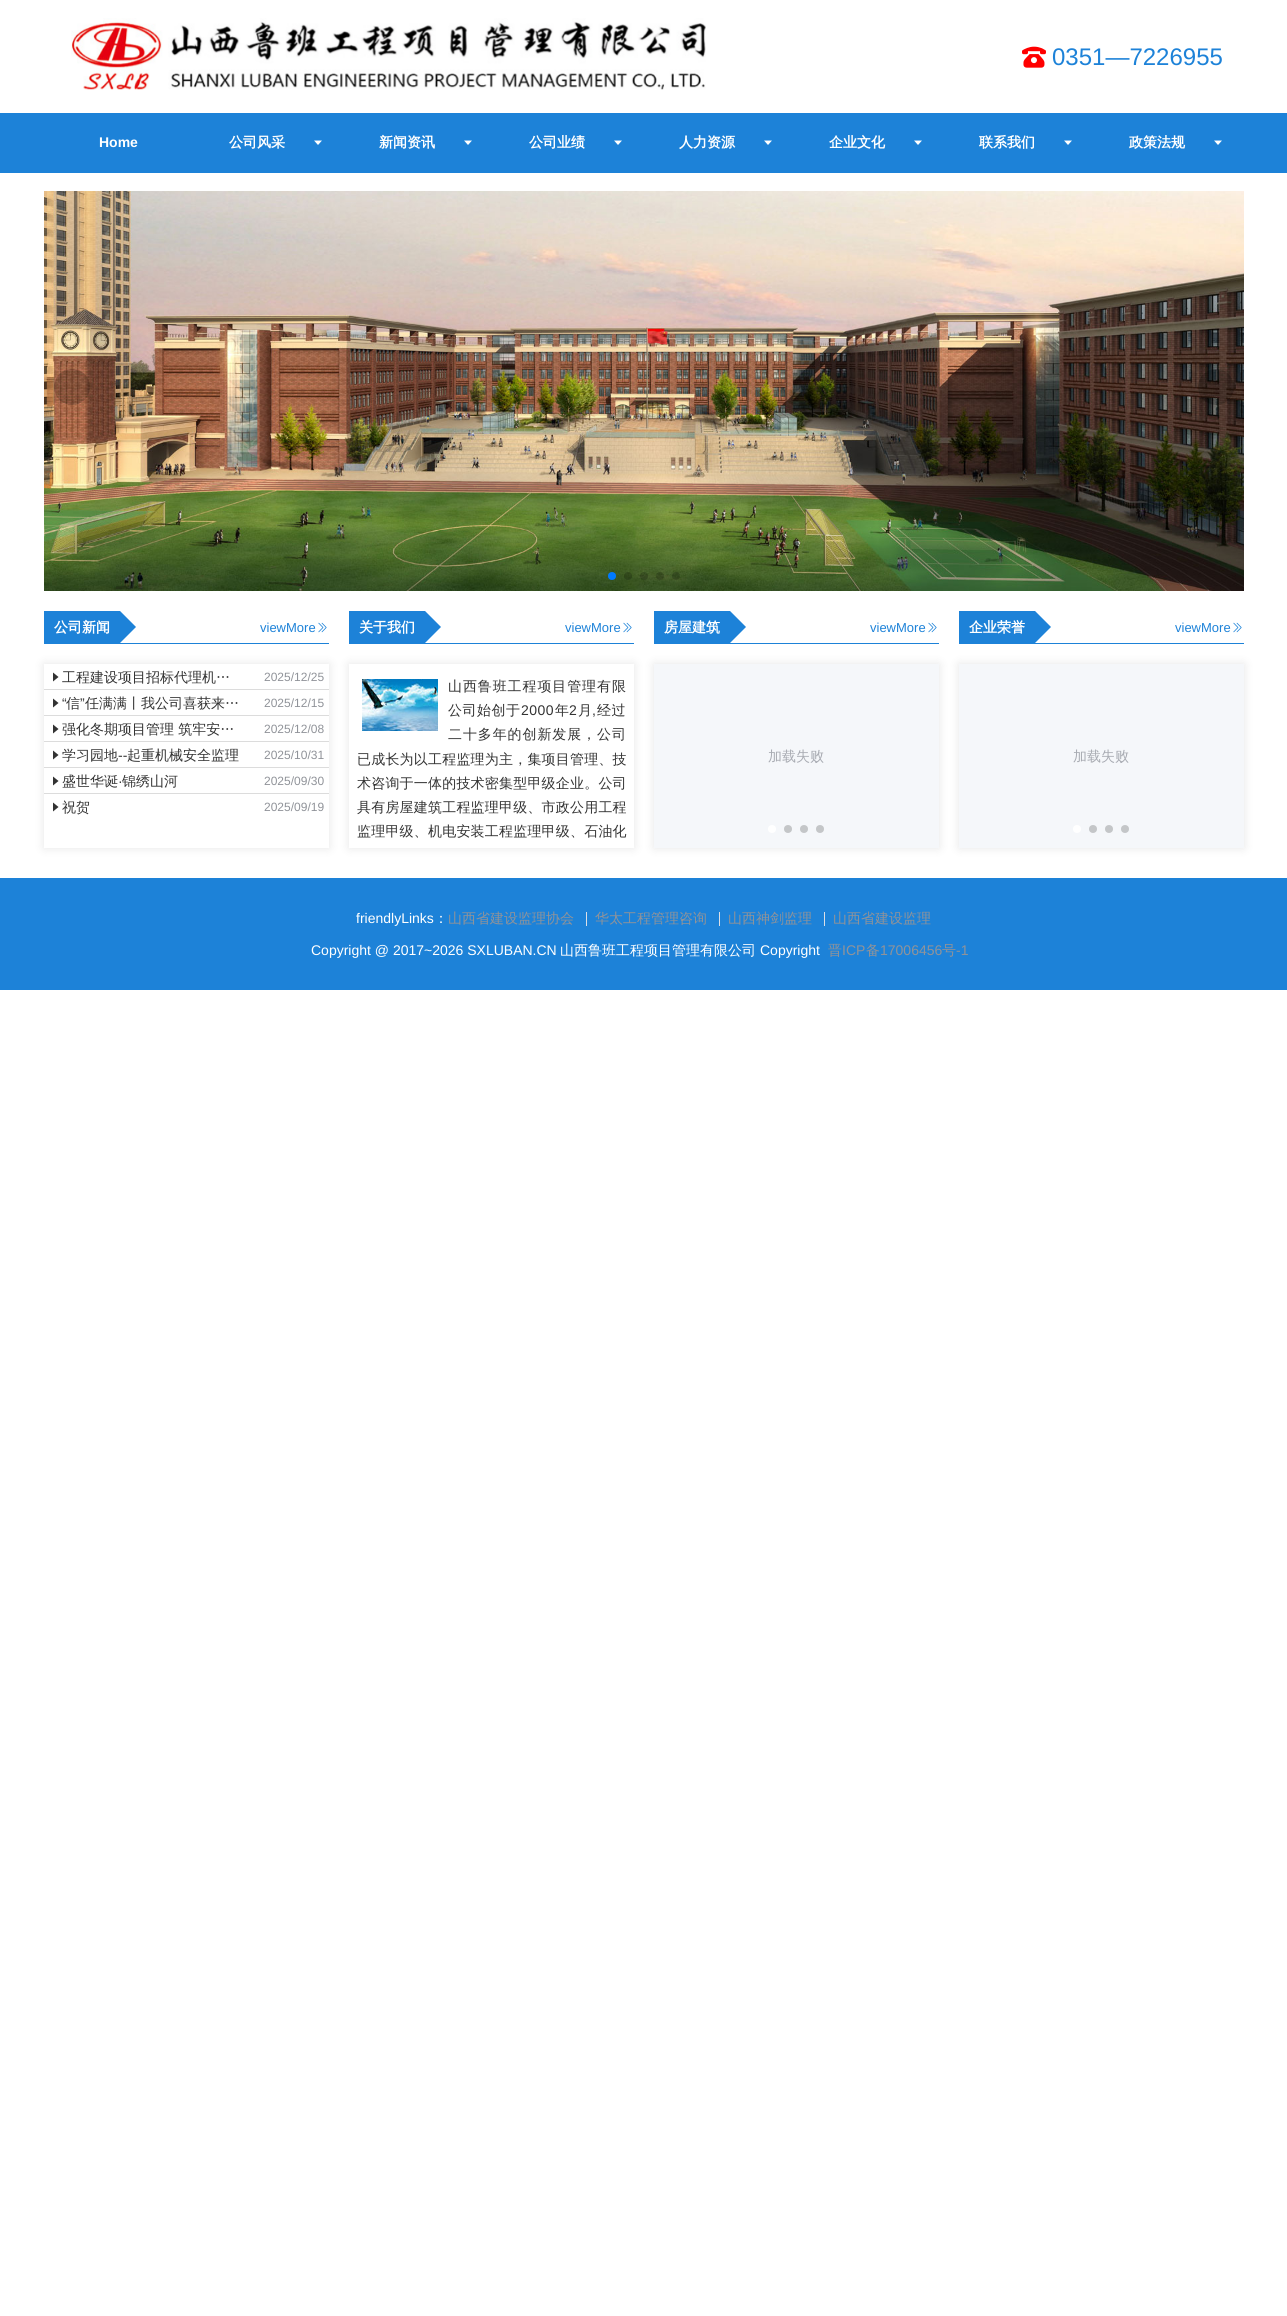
import math
import cairo

surface = cairo.ImageSurface(cairo.Format.RGB24, 1287, 2316)
ctx = cairo.Context(surface)
options = cairo.FontOptions()
options.set_hint_metrics(cairo.HintMetrics.OFF)
options.set_hint_style(cairo.HintStyle.NONE)
ctx.set_font_options(options)
ctx.set_miter_limit(4)


def ink(r, g, b):
    ctx.set_source_rgb(r / 255, g / 255, b / 255)


def write(x, y, s, family, size, color, bold=False, italic=False):
    ctx.select_font_face(family, cairo.FontSlant.ITALIC if italic else cairo.FontSlant.NORMAL, cairo.FontWeight.BOLD if bold else cairo.FontWeight.NORMAL)
    ctx.set_font_size(size)
    ink(*color)
    ctx.move_to(x, y)
    ctx.show_text(s)


def write_spaced(x, y, s, letter, word):
    ctx.move_to(x, y)
    for ch in s:
        ctx.show_text(ch)
        ctx.rel_move_to(letter + word * (ch == ' '), 0)


def block(x, y, w, h, *color):
    ink(*color)
    ctx.rectangle(x, y, w, h)
    ctx.fill()


def round_path(x, y, w, h, r):
    ctx.new_sub_path()
    for i, (u, v) in enumerate([(x + w - r, y + h - r), (x + r, y + h - r), (x + r, y + r), (x + w - r, y + r)]):
        ctx.arc(u, v, r, i * math.pi / 2, (i + 1) * math.pi / 2)
    ctx.close_path()


def blur_box(x, y, w, h, r, blur, alpha):
    ctx.push_group_with_content(cairo.Content.ALPHA)
    ctx.set_operator(cairo.Operator.SOURCE)
    for i in range(15, -16, -2):
        e = blur * i / 6
        if min(w, h) + 2 * e > 0:
            ctx.set_source_rgba(0, 0, 0, alpha * math.erfc((i - 1) / 8.5) / 2)
            round_path(x - e, y - e, w + 2 * e, h + 2 * e, max(0, min(r + e + blur * .6, min(w, h) / 2 + e)))
            ctx.fill()
    ctx.mask(ctx.pop_group())


def paste(path, x, y, w, h):
    ctx.save()
    ctx.set_source_surface(cairo.ImageSurface.create_from_png(path), x, y)
    ctx.rectangle(x, y, w, h)
    ctx.fill()
    ctx.restore()


s1 = dict(family="Liberation Sans", size=24, color=(29, 130, 216))
s2 = dict(family="Liberation Sans", size=14, color=(255, 255, 255), bold=True)
s3 = dict(family="WenQuanYi Zen Hei", size=14, color=(255, 255, 255), bold=True)
s4 = dict(family="Liberation Sans", size=13, color=(29, 130, 216))
s5 = dict(family="WenQuanYi Zen Hei Medium", size=14, color=(51, 51, 51))
s6 = dict(family="Liberation Sans", size=12, color=(144, 147, 153))
s7 = dict(family="Liberation Sans", size=14, color=(51, 51, 51))
s8 = dict(family="WenQuanYi Zen Hei Medium", size=14, color=(168, 171, 178))
s9 = dict(family="Liberation Sans", size=14, color=(255, 255, 255))
s10 = dict(family="WenQuanYi Zen Hei Medium", size=14, color=(255, 255, 255))
s11 = dict(family="WenQuanYi Zen Hei Medium", size=14, color=(144, 147, 153))
s12 = dict(family="Liberation Sans", size=14, color=(144, 147, 153))

ink(255, 255, 255)
ctx.paint()
paste("pic1.png", 71, 18, 635, 72)
paste("pic2.png", 1022, 46, 24, 22)
write(1052, 65, "0351—7226955", **s1)
block(0, 113, 1287, 60, 29, 130, 216)
write(99, 147, "Home", **s2)
write(229, 147, "公司风采", **s3)
ctx.new_path()
ctx.move_to(314, 140.5)
ctx.line_to(318, 145)
ctx.line_to(322, 140.5)
ctx.close_path()
ctx.fill()
write(379, 147, "新闻资讯", **s3)
ctx.new_path()
ctx.move_to(464, 140.5)
ctx.line_to(468, 145)
ctx.line_to(472, 140.5)
ctx.close_path()
ctx.fill()
write(529, 147, "公司业绩", **s3)
ctx.new_path()
ctx.move_to(614, 140.5)
ctx.line_to(618, 145)
ctx.line_to(622, 140.5)
ctx.close_path()
ctx.fill()
write(679, 147, "人力资源", **s3)
ctx.new_path()
ctx.move_to(764, 140.5)
ctx.line_to(768, 145)
ctx.line_to(772, 140.5)
ctx.close_path()
ctx.fill()
write(829, 147, "企业文化", **s3)
ctx.new_path()
ctx.move_to(914, 140.5)
ctx.line_to(918, 145)
ctx.line_to(922, 140.5)
ctx.close_path()
ctx.fill()
write(979, 147, "联系我们", **s3)
ctx.new_path()
ctx.move_to(1064, 140.5)
ctx.line_to(1068, 145)
ctx.line_to(1072, 140.5)
ctx.close_path()
ctx.fill()
write(1129, 147, "政策法规", **s3)
ctx.new_path()
ctx.move_to(1214, 140.5)
ctx.line_to(1218, 145)
ctx.line_to(1222, 140.5)
ctx.close_path()
ctx.fill()
paste("pic3.png", 44, 191, 1200, 400)
ctx.set_source_rgba(0, 0, 0, 0.2)
ctx.arc(72, 387, 18, 0, 2 * math.pi)
ctx.fill()
ctx.arc(1216, 387, 18, 0, 2 * math.pi)
ctx.fill()
ink(0, 122, 255)
ctx.arc(612, 576, 4, 0, 2 * math.pi)
ctx.fill()
ctx.set_source_rgba(0, 0, 0, 0.2)
ctx.arc(628, 576, 4, 0, 2 * math.pi)
ctx.fill()
ctx.arc(644, 576, 4, 0, 2 * math.pi)
ctx.fill()
ctx.arc(660, 576, 4, 0, 2 * math.pi)
ctx.fill()
ctx.arc(676, 576, 4, 0, 2 * math.pi)
ctx.fill()
block(44, 643, 285, 1, 29, 130, 216)
block(44, 611, 76, 32, 29, 130, 216)
write(54, 632, "公司新闻", **s3)
ink(29, 130, 216)
ctx.new_path()
ctx.move_to(120, 643)
ctx.line_to(120, 611)
ctx.line_to(136, 627)
ctx.close_path()
ctx.fill()
write(260, 632, "viewMore", **s4)
paste("pic4.png", 318, 622, 9, 11)
ctx.save()
ctx.set_fill_rule(cairo.FillRule.EVEN_ODD)
ctx.new_path()
ctx.move_to(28, 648)
ctx.line_to(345, 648)
ctx.line_to(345, 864)
ctx.line_to(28, 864)
ctx.close_path()
ctx.move_to(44, 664)
ctx.line_to(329, 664)
ctx.line_to(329, 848)
ctx.line_to(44, 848)
ctx.close_path()
ctx.clip()
ink(0, 0, 0)
blur_box(44, 664, 285, 184, 0, 5, 0.1)
ctx.restore()
block(44, 689, 285, 1, 220, 220, 220)
ink(51, 51, 51)
ctx.new_path()
ctx.move_to(53, 672.5)
ctx.line_to(53, 681.5)
ctx.line_to(58.5, 677)
ctx.close_path()
ctx.fill()
write(62, 682, "工程建设项目招标代理机…", **s5)
write(264, 681, "2025/12/25", **s6)
block(44, 715, 285, 1, 220, 220, 220)
ink(51, 51, 51)
ctx.new_path()
ctx.move_to(53, 698.5)
ctx.line_to(53, 707.5)
ctx.line_to(58.5, 703)
ctx.close_path()
ctx.fill()
write(62, 708, "“", **s7)
write(66, 708, "信", **s5)
write(80, 708, "”", **s7)
write(85, 708, "任满满丨我公司喜获来…", **s5)
write(264, 707, "2025/12/15", **s6)
block(44, 741, 285, 1, 220, 220, 220)
ink(51, 51, 51)
ctx.new_path()
ctx.move_to(53, 724.5)
ctx.line_to(53, 733.5)
ctx.line_to(58.5, 729)
ctx.close_path()
ctx.fill()
write(62, 734, "强化冬期项目管理 筑牢安…", **s5)
write(264, 733, "2025/12/08", **s6)
block(44, 767, 285, 1, 220, 220, 220)
ink(51, 51, 51)
ctx.new_path()
ctx.move_to(53, 750.5)
ctx.line_to(53, 759.5)
ctx.line_to(58.5, 755)
ctx.close_path()
ctx.fill()
write(62, 760, "学习园地", **s5)
write(118, 760, "--", **s7)
write(127, 760, "起重机械安全监理", **s5)
write(264, 759, "2025/10/31", **s6)
block(44, 793, 285, 1, 220, 220, 220)
ink(51, 51, 51)
ctx.new_path()
ctx.move_to(53, 776.5)
ctx.line_to(53, 785.5)
ctx.line_to(58.5, 781)
ctx.close_path()
ctx.fill()
write(62, 786, "盛世华诞", **s5)
write(118, 786, "·", **s7)
write(122, 786, "锦绣山河", **s5)
write(264, 785, "2025/09/30", **s6)
ink(51, 51, 51)
ctx.new_path()
ctx.move_to(53, 802.5)
ctx.line_to(53, 811.5)
ctx.line_to(58.5, 807)
ctx.close_path()
ctx.fill()
write(62, 812, "祝贺", **s5)
write(264, 811, "2025/09/19", **s6)
block(349, 643, 285, 1, 29, 130, 216)
block(349, 611, 76, 32, 29, 130, 216)
write(359, 632, "关于我们", **s3)
ink(29, 130, 216)
ctx.new_path()
ctx.move_to(425, 643)
ctx.line_to(425, 611)
ctx.line_to(441, 627)
ctx.close_path()
ctx.fill()
write(565, 632, "viewMore", **s4)
paste("pic4.png", 623, 622, 9, 11)
ctx.save()
ctx.set_fill_rule(cairo.FillRule.EVEN_ODD)
ctx.new_path()
ctx.move_to(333, 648)
ctx.line_to(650, 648)
ctx.line_to(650, 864)
ctx.line_to(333, 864)
ctx.close_path()
ctx.move_to(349, 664)
ctx.line_to(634, 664)
ctx.line_to(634, 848)
ctx.line_to(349, 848)
ctx.close_path()
ctx.clip()
ink(0, 0, 0)
blur_box(349, 664, 285, 184, 0, 5, 0.1)
ctx.restore()
paste("pic5.png", 362, 679, 76, 52)
ctx.select_font_face("WenQuanYi Zen Hei Medium")
ctx.set_font_size(14)
ink(51, 51, 51)
write_spaced(448, 691, "山西鲁班工程项目管理有限", 0.9, 0)
write_spaced(448, 715, "公司始创于", 0.5, 0)
ctx.select_font_face("Liberation Sans")
write_spaced(521, 715, "2000", 0.5, 0)
ctx.select_font_face("WenQuanYi Zen Hei Medium")
write_spaced(555, 715, "年", 0.5, 0)
ctx.select_font_face("Liberation Sans")
write_spaced(569, 715, "2", 0.5, 0)
ctx.select_font_face("WenQuanYi Zen Hei Medium")
write_spaced(578, 715, "月", 0.5, 0)
ctx.select_font_face("Liberation Sans")
write_spaced(592, 715, ",", 0.5, 0)
ctx.select_font_face("WenQuanYi Zen Hei Medium")
write_spaced(597, 715, "经过", 0.5, 0)
write_spaced(448, 739, "二十多年的创新发展，公司", 0.9, 0)
write_spaced(357, 764, "已成长为以工程监理为主，集项目管理、技", 0.2, 0)
write_spaced(357, 788, "术咨询于一体的技术密集型甲级企业。公司", 0.2, 0)
write_spaced(357, 812, "具有房屋建筑工程监理甲级、市政公用工程", 0.2, 0)
write_spaced(357, 836, "监理甲级、机电安装工程监理甲级、石油化", 0.2, 0)
block(654, 643, 285, 1, 29, 130, 216)
block(654, 611, 76, 32, 29, 130, 216)
write(664, 632, "房屋建筑", **s3)
ink(29, 130, 216)
ctx.new_path()
ctx.move_to(730, 643)
ctx.line_to(730, 611)
ctx.line_to(746, 627)
ctx.close_path()
ctx.fill()
write(870, 632, "viewMore", **s4)
paste("pic4.png", 928, 622, 9, 11)
ink(0, 0, 0)
blur_box(654, 664, 285, 184, 0, 5, 0.1)
block(654, 664, 285, 184, 245, 247, 250)
write(768, 761, "加载失败", **s8)
ink(255, 255, 255)
ctx.new_path()
ctx.arc(772, 829, 4, 0, 2 * math.pi)
ctx.fill()
ink(196, 198, 200)
ctx.arc(788, 829, 4, 0, 2 * math.pi)
ctx.fill()
ctx.arc(804, 829, 4, 0, 2 * math.pi)
ctx.fill()
ctx.arc(820, 829, 4, 0, 2 * math.pi)
ctx.fill()
block(959, 643, 285, 1, 29, 130, 216)
block(959, 611, 76, 32, 29, 130, 216)
write(969, 632, "企业荣誉", **s3)
ink(29, 130, 216)
ctx.new_path()
ctx.move_to(1035, 643)
ctx.line_to(1035, 611)
ctx.line_to(1051, 627)
ctx.close_path()
ctx.fill()
write(1175, 632, "viewMore", **s4)
paste("pic4.png", 1233, 622, 9, 11)
ink(0, 0, 0)
blur_box(959, 664, 285, 184, 0, 5, 0.1)
block(959, 664, 285, 184, 245, 247, 250)
write(1073, 761, "加载失败", **s8)
ink(255, 255, 255)
ctx.new_path()
ctx.arc(1077, 829, 4, 0, 2 * math.pi)
ctx.fill()
ink(196, 198, 200)
ctx.arc(1093, 829, 4, 0, 2 * math.pi)
ctx.fill()
ctx.arc(1109, 829, 4, 0, 2 * math.pi)
ctx.fill()
ctx.arc(1125, 829, 4, 0, 2 * math.pi)
ctx.fill()
block(0, 878, 1287, 112, 29, 130, 216)
write(356, 923, "friendlyLinks", **s9)
write(434, 923, "：", **s10)
write(448, 923, "山西省建设监理协会", **s11)
block(586, 912, 1, 14, 220, 223, 230)
write(595, 923, "华太工程管理咨询", **s11)
block(719, 912, 1, 14, 220, 223, 230)
write(728, 923, "山西神剑监理", **s11)
block(824, 912, 1, 14, 220, 223, 230)
write(833, 923, "山西省建设监理", **s11)
write(311, 955, "Copyright @ 2017~2026 SXLUBAN.CN", **s9)
write(560, 955, "山西鲁班工程项目管理有限公司", **s10)
write(760, 955, "Copyright", **s9)
write(828, 955, "晋", **s11)
write(842, 955, "ICP", **s12)
write(866, 955, "备", **s11)
write(880, 955, "17006456", **s12)
write(942, 955, "号", **s11)
write(956, 955, "-1", **s12)
surface.write_to_png("screenshot.png")
